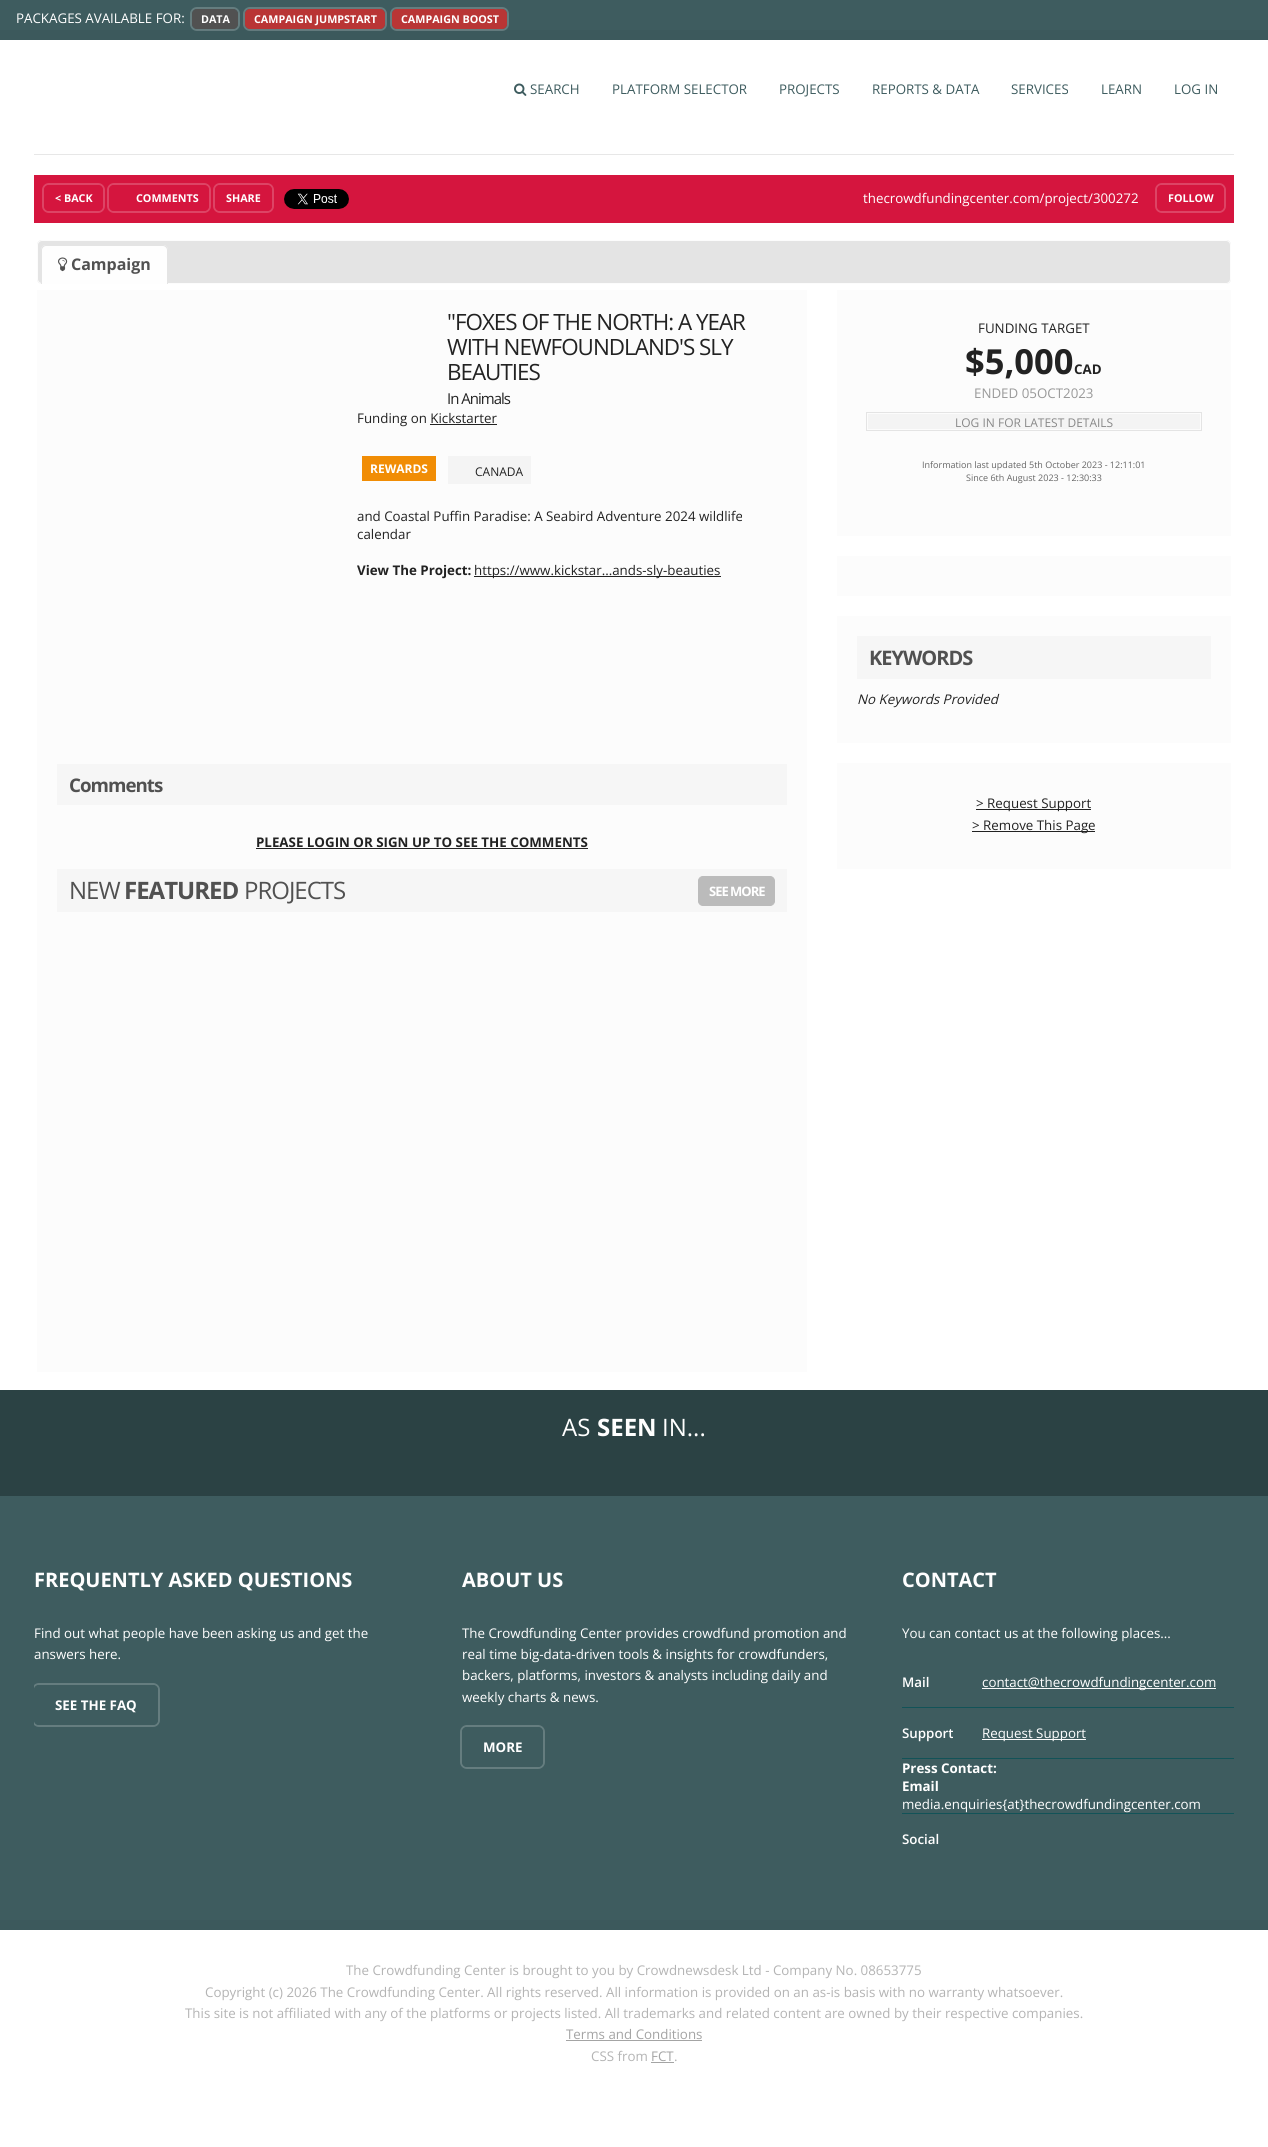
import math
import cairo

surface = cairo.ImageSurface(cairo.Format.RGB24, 1268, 2147)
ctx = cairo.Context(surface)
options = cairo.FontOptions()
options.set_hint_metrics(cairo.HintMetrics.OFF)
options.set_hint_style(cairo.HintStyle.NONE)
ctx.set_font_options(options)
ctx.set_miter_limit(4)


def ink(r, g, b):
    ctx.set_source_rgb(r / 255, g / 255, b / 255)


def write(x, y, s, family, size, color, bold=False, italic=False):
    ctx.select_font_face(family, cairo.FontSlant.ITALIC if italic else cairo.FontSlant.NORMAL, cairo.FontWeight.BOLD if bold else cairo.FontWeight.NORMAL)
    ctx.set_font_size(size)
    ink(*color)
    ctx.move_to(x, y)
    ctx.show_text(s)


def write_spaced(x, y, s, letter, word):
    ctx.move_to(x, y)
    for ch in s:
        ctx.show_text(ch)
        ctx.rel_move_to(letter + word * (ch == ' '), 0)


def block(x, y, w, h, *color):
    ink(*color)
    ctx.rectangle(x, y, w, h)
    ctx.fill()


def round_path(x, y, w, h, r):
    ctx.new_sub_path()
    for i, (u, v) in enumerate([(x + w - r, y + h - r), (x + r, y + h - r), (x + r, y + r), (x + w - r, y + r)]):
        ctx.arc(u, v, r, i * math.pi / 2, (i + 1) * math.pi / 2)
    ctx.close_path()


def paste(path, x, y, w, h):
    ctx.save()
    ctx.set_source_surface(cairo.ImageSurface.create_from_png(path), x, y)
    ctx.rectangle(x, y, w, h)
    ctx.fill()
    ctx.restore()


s1 = dict(family="Open Sans", size=13.33, color=(255, 255, 255))
s2 = dict(family="Open Sans", size=10.75, color=(255, 255, 255), bold=True)
s3 = dict(family="Open Sans", size=13.33, color=(62, 92, 95))
s4 = dict(family="Open Sans", size=16, color=(81, 81, 81), bold=True)
s5 = dict(family="Open Sans", size=13.33, color=(34, 34, 34))
s6 = dict(family="Open Sans", size=12, color=(255, 255, 255), bold=True)
s7 = dict(family="Open Sans", size=12, color=(34, 34, 34))
s8 = dict(family="Open Sans", size=13.33, color=(34, 34, 34), bold=True)
s9 = dict(family="Open Sans", size=34.5, color=(34, 34, 34), bold=True)
s10 = dict(family="Open Sans", size=13.33, color=(153, 153, 153))
s11 = dict(family="Open Sans", size=12, color=(136, 136, 136))
s12 = dict(family="Open Sans", size=9, color=(102, 102, 102))
s13 = dict(family="Open Sans", size=13.33, color=(34, 34, 34), italic=True)
s14 = dict(family="Open Sans", size=24, color=(255, 255, 255))
s15 = dict(family="Open Sans", size=24, color=(255, 255, 255), bold=True)
s16 = dict(family="Open Sans", size=20, color=(255, 255, 255), bold=True)
s17 = dict(family="Open Sans", size=13.33, color=(255, 255, 255), bold=True)
s18 = dict(family="Open Sans SemiBold", size=13.33, color=(255, 255, 255))
s19 = dict(family="Open Sans", size=13.33, color=(180, 180, 180))
s20 = dict(family="Open Sans", size=13.33, color=(164, 164, 164))

ink(255, 255, 255)
ctx.paint()
block(0, 0, 1268, 1920, 62, 92, 95)
write(16, 23, "PACKAGES AVAILABLE FOR:", **s1)
block(0, 30, 1268, 10, 60, 89, 92)
round_path(191, 8, 48, 22, 6)
ctx.set_source_rgba(1, 1, 1, 0.2)
ctx.stroke()
ink(81, 81, 81)
round_path(192.5, 9.5, 45, 19, 4.5)
ctx.fill_preserve()
ctx.set_line_width(1)
ctx.stroke()
write(201, 23, "DATA", **s2)
round_path(244, 8, 142, 22, 6)
ctx.set_source_rgba(1, 1, 1, 0.2)
ctx.set_line_width(2)
ctx.stroke()
ink(185, 53, 53)
round_path(245.5, 9.5, 139, 19, 4.5)
ctx.fill_preserve()
ctx.set_line_width(1)
ctx.stroke()
write(254, 23, "CAMPAIGN JUMPSTART", **s2)
round_path(391, 8, 117, 22, 6)
ctx.set_source_rgba(1, 1, 1, 0.2)
ctx.set_line_width(2)
ctx.stroke()
ink(185, 53, 53)
round_path(392.5, 9.5, 114, 19, 4.5)
ctx.fill_preserve()
ctx.set_line_width(1)
ctx.stroke()
write(401, 23, "CAMPAIGN BOOST", **s2)
block(0, 40, 1268, 1350, 255, 255, 255)
block(34, 154, 1200, 1, 231, 231, 231)
paste("pic1.png", 514, 83, 13, 13)
write(530, 94, "SEARCH", **s3)
write(612, 94, "PLATFORM SELECTOR", **s3)
write(779, 94, "PROJECTS", **s3)
write(872, 94, "REPORTS & DATA", **s3)
write(1011, 94, "SERVICES", **s3)
write(1101, 94, "LEARN", **s3)
write(1174, 94, "LOG IN", **s3)
block(34, 175, 1200, 48, 213, 21, 62)
round_path(43, 184, 61, 28, 6)
ink(221, 68, 101)
ctx.set_line_width(2)
ctx.stroke()
ink(213, 21, 62)
round_path(44.5, 185.5, 58, 25, 4.5)
ctx.fill_preserve()
ctx.set_line_width(1)
ctx.stroke()
write(55, 202, "< BACK", **s2)
round_path(108, 184, 102, 28, 6)
ink(221, 68, 101)
ctx.set_line_width(2)
ctx.stroke()
ink(213, 21, 62)
round_path(109.5, 185.5, 99, 25, 4.5)
ctx.fill_preserve()
ctx.set_line_width(1)
ctx.stroke()
write(136, 202, "COMMENTS", **s2)
round_path(214, 184, 59, 28, 6)
ink(221, 68, 101)
ctx.set_line_width(2)
ctx.stroke()
ink(213, 21, 62)
round_path(215.5, 185.5, 56, 25, 4.5)
ctx.fill_preserve()
ctx.set_line_width(1)
ctx.stroke()
write(226, 202, "SHARE", **s2)
paste("pic2.png", 284, 189, 65, 20)
write(863, 203, "thecrowdfundingcenter.com/project/300272", **s1)
round_path(1156, 184, 69, 28, 6)
ink(221, 68, 101)
ctx.set_line_width(2)
ctx.stroke()
ink(213, 21, 62)
round_path(1157.5, 185.5, 66, 25, 4.5)
ctx.fill_preserve()
ctx.set_line_width(1)
ctx.stroke()
write(1168, 202, "FOLLOW", **s2)
paste("pic3.png", 37, 240, 1194, 44)
round_path(37.5, 240.5, 1193, 43, 4.5)
ink(252, 252, 252)
ctx.stroke()
ink(254, 254, 254)
ctx.new_path()
ctx.move_to(46, 246)
ctx.line_to(163, 246)
ctx.curve_to(165, 246, 167, 248, 167, 250)
ctx.line_to(167, 284)
ctx.line_to(42, 284)
ctx.line_to(42, 250)
ctx.curve_to(42, 248, 44, 246, 46, 246)
ctx.close_path()
ctx.fill()
paste("pic4.png", 41, 245, 127, 38)
ink(228, 228, 228)
ctx.set_fill_rule(cairo.FillRule.EVEN_ODD)
ctx.new_path()
ctx.move_to(46, 245)
ctx.line_to(163, 245)
ctx.curve_to(166, 245, 168, 247, 168, 250)
ctx.line_to(168, 284)
ctx.line_to(41, 284)
ctx.line_to(41, 250)
ctx.curve_to(41, 247, 43, 245, 46, 245)
ctx.close_path()
ctx.move_to(46, 246)
ctx.line_to(163, 246)
ctx.curve_to(165, 246, 167, 248, 167, 250)
ctx.line_to(167, 284)
ctx.line_to(42, 284)
ctx.line_to(42, 250)
ctx.curve_to(42, 248, 44, 246, 46, 246)
ctx.close_path()
ctx.fill()
paste("pic5.png", 58, 257, 10, 15)
write(71, 270, "Campaign", **s4)
block(37, 290, 770, 1082, 252, 252, 252)
ctx.select_font_face("Open Sans")
ctx.set_font_size(22.4)
ink(34, 34, 34)
write_spaced(447, 330, "\"FOXES OF THE NORTH: A YEAR", -1, 0)
write_spaced(447, 355, "WITH NEWFOUNDLAND'S SLY", -1, 0)
write_spaced(447, 380, "BEAUTIES", -1, 0)
ctx.set_font_size(15)
write_spaced(447, 404, "In Animals", -1, 0)
write(357, 423, "Funding on Kickstarter", **s5)
block(430, 424, 67, 1, 34, 34, 34)
block(362, 456, 74, 25, 241, 141, 5)
write(370, 473, "REWARDS", **s6)
block(448, 456, 83, 28, 244, 244, 244)
write(475, 476, "CANADA", **s7)
write(357, 521, "and Coastal Puffin Paradise: A Seabird Adventure 2024 wildlife", **s5)
write(357, 539, "calendar", **s5)
write(357, 575, "View The Project:", **s8)
block(474, 576, 247, 1, 34, 34, 34)
write(474, 575, "https://www.kickstar...ands-sly-beauties", **s5)
block(57, 764, 730, 41, 246, 246, 246)
ctx.select_font_face("Open Sans", cairo.FontSlant.NORMAL, cairo.FontWeight.BOLD)
ctx.set_font_size(18.75)
ink(81, 81, 81)
write_spaced(69, 792, "Comments", -1, 0)
write(256, 847, "PLEASE LOGIN OR SIGN UP TO SEE THE COMMENTS", **s8)
block(256, 848, 332, 1, 34, 34, 34)
block(57, 869, 730, 43, 246, 246, 246)
ctx.select_font_face("Open Sans")
ctx.set_font_size(24)
ink(81, 81, 81)
write_spaced(69, 899, "NEW", -1, 0)
ctx.select_font_face("Open Sans", cairo.FontSlant.NORMAL, cairo.FontWeight.BOLD)
write_spaced(124, 899, "FEATURED", -1, 0)
ctx.select_font_face("Open Sans")
write_spaced(244, 899, "PROJECTS", -1, 0)
ink(187, 187, 187)
round_path(698.5, 876.5, 76, 29, 4.5)
ctx.fill_preserve()
ctx.stroke()
ctx.select_font_face("Open Sans", cairo.FontSlant.NORMAL, cairo.FontWeight.BOLD)
ctx.set_font_size(13)
ink(255, 255, 255)
write_spaced(709, 896, "SEE MORE", -1, 0)
block(837, 290, 394, 246, 252, 252, 252)
write(978, 333, "FUNDING TARGET", **s5)
write(965, 374, "$5,000", **s9)
write(1074, 374, "CAD", **s8)
write(974, 398, "ENDED 05OCT2023", **s10)
ctx.rectangle(866.5, 412.5, 335, 18)
ink(228, 228, 228)
ctx.stroke()
block(868, 414, 332, 15, 244, 244, 244)
write(955, 427, "LOG IN FOR LATEST DETAILS", **s11)
write(922, 468, "Information last updated 5th October 2023 - 12:11:01", **s12)
write(966, 481, "Since 6th August 2023 - 12:30:33", **s12)
block(837, 556, 394, 40, 252, 252, 252)
block(837, 616, 394, 127, 252, 252, 252)
block(857, 636, 354, 43, 246, 246, 246)
ctx.select_font_face("Open Sans", cairo.FontSlant.NORMAL, cairo.FontWeight.BOLD)
ctx.set_font_size(20)
ink(81, 81, 81)
write_spaced(869, 665, "KEYWORDS", -1, 0)
write(857, 704, "No Keywords Provided", **s13)
block(837, 763, 394, 106, 252, 252, 252)
block(976, 809, 115, 1, 34, 34, 34)
write(976, 808, "> Request Support", **s5)
block(972, 831, 123, 1, 34, 34, 34)
write(972, 830, "> Remove This Page", **s5)
block(0, 1390, 1268, 106, 43, 66, 68)
write(562, 1436, "AS", **s14)
write(597, 1436, "SEEN", **s15)
write(662, 1436, "IN...", **s14)
write(34, 1587, "FREQUENTLY ASKED QUESTIONS", **s16)
write(34, 1638, "Find out what people have been asking us and get the", **s1)
write(34, 1659, "answers here.", **s1)
ctx.save()
ctx.set_fill_rule(cairo.FillRule.WINDING)
ctx.rectangle(34, 1496, 1200, 434)
ctx.clip()
round_path(33, 1684, 126, 42, 6)
ink(101, 125, 127)
ctx.set_line_width(2)
ctx.stroke()
ctx.restore()
ink(62, 92, 95)
round_path(34.5, 1685.5, 123, 39, 4.5)
ctx.fill_preserve()
ctx.stroke()
write(55, 1710, "SEE THE FAQ", **s17)
write(462, 1587, "ABOUT US", **s16)
write(462, 1638, "The Crowdfunding Center provides crowdfund promotion and", **s1)
write(462, 1659, "real time big-data-driven tools & insights for crowdfunders,", **s1)
write(462, 1680, "backers, platforms, investors & analysts including daily and", **s1)
write(462, 1702, "weekly charts & news.", **s1)
round_path(461, 1726, 83, 42, 6)
ink(101, 125, 127)
ctx.set_line_width(2)
ctx.stroke()
ink(62, 92, 95)
round_path(462.5, 1727.5, 80, 39, 4.5)
ctx.fill_preserve()
ctx.set_line_width(1)
ctx.stroke()
write(483, 1752, "MORE", **s17)
write(902, 1587, "CONTACT", **s16)
write(902, 1638, "You can contact us at the following places...", **s1)
write(902, 1687, "Mail", **s18)
block(982, 1688, 234, 1, 252, 252, 252)
write(982, 1687, "contact@thecrowdfundingcenter.com", **s1)
block(902, 1707, 332, 1, 18, 83, 88)
write(902, 1738, "Support", **s18)
block(982, 1739, 104, 1, 252, 252, 252)
write(982, 1738, "Request Support", **s1)
block(902, 1758, 332, 1, 18, 83, 88)
write(902, 1773, "Press Contact:", **s17)
write(902, 1791, "Email", **s17)
write(902, 1809, "media.enquiries{at}thecrowdfundingcenter.com", **s1)
block(902, 1813, 332, 1, 18, 83, 88)
write(902, 1844, "Social", **s18)
block(0, 1920, 1268, 10, 60, 89, 92)
write(346, 1975, "The Crowdfunding Center is brought to you by Crowdnewsdesk Ltd - Company No. 08653775", **s19)
write(205, 1997, "Copyright (c) 2026 The Crowdfunding Center. All rights reserved. All information is provided on an as-is basis with no warranty whatsoever.", **s19)
write(185, 2018, "This site is not affiliated with any of the platforms or projects listed. All trademarks and related content are owned by their respective companies.", **s19)
write(566, 2039, "Terms and Conditions", **s20)
block(566, 2040, 136, 1, 164, 164, 164)
write(591, 2061, "CSS from", **s19)
write(651, 2061, "FCT", **s20)
block(651, 2062, 23, 1, 164, 164, 164)
write(674, 2061, ".", **s19)
surface.write_to_png("screenshot.png")
